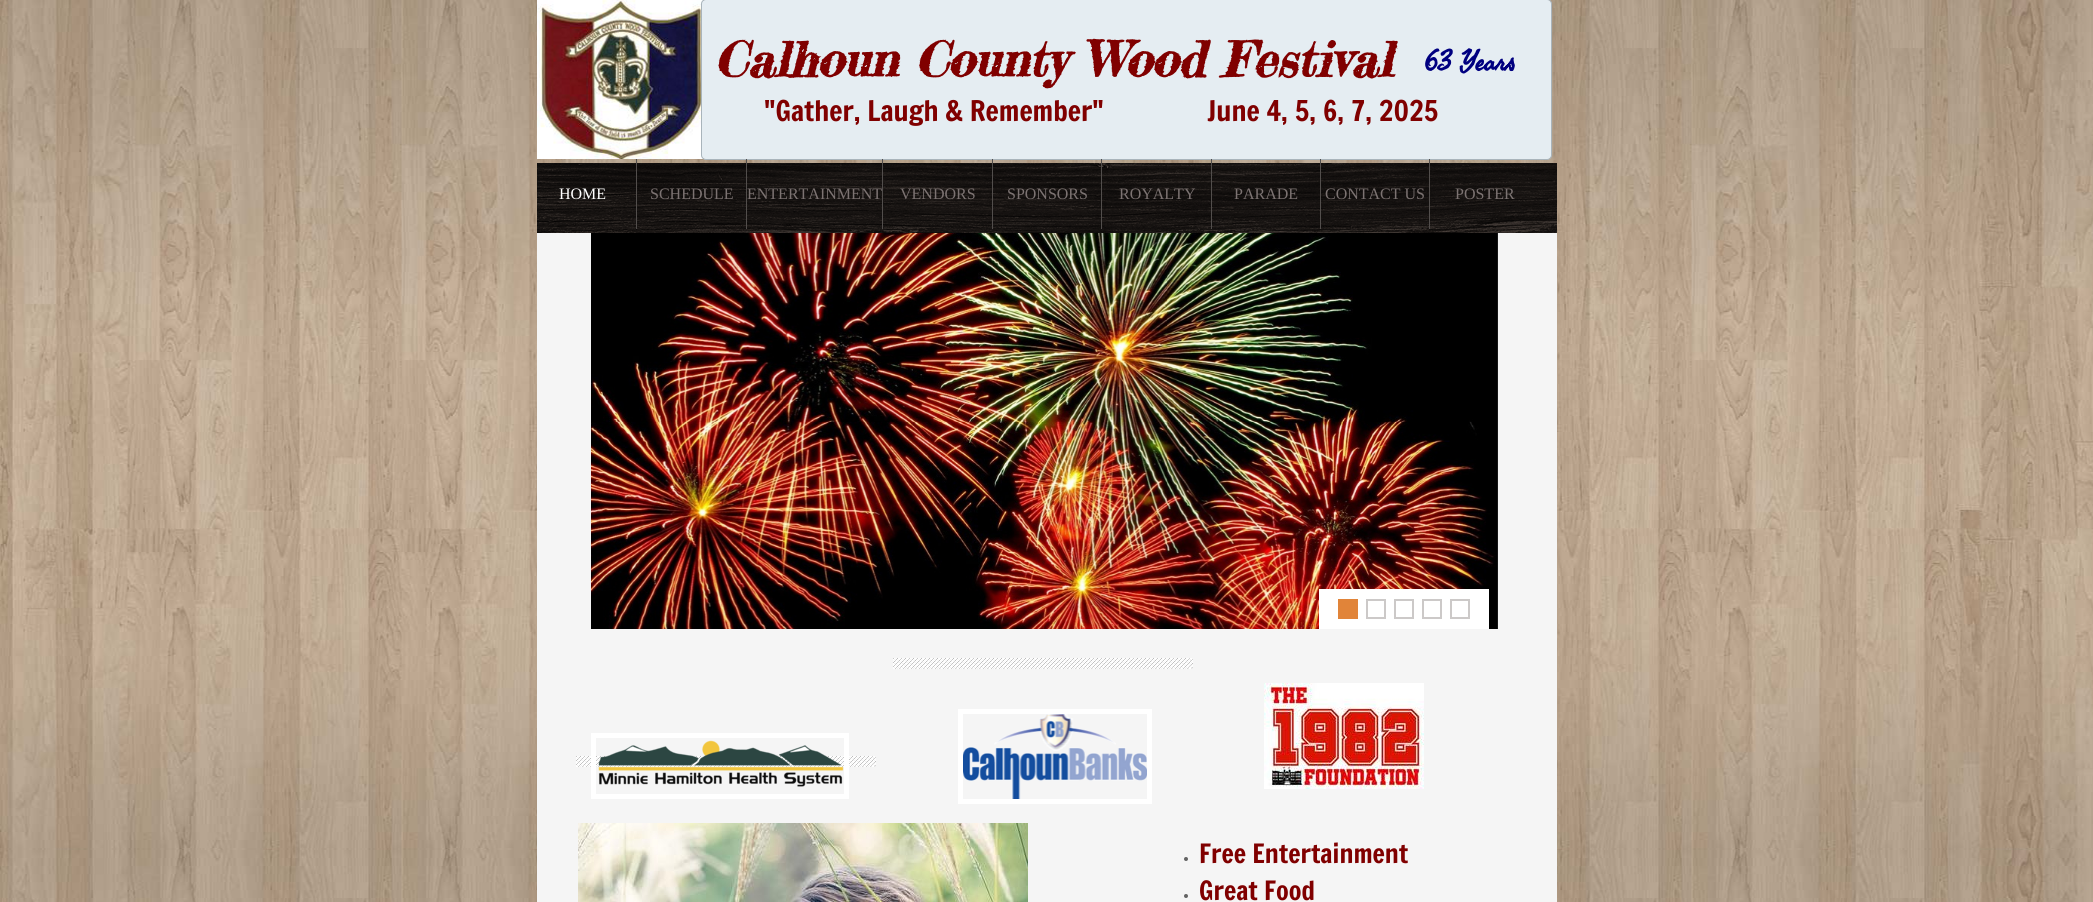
import math
import cairo

surface = cairo.ImageSurface(cairo.Format.RGB24, 2093, 902)
ctx = cairo.Context(surface)
options = cairo.FontOptions()
options.set_hint_metrics(cairo.HintMetrics.OFF)
options.set_hint_style(cairo.HintStyle.NONE)
ctx.set_font_options(options)
ctx.set_miter_limit(4)


def ink(r, g, b):
    ctx.set_source_rgb(r / 255, g / 255, b / 255)


def write(x, y, s, family, size, color, bold=False, italic=False):
    ctx.select_font_face(family, cairo.FontSlant.ITALIC if italic else cairo.FontSlant.NORMAL, cairo.FontWeight.BOLD if bold else cairo.FontWeight.NORMAL)
    ctx.set_font_size(size)
    ink(*color)
    ctx.move_to(x, y)
    ctx.show_text(s)


def block(x, y, w, h, *color):
    ink(*color)
    ctx.rectangle(x, y, w, h)
    ctx.fill()


def round_path(x, y, w, h, r):
    ctx.new_sub_path()
    for i, (u, v) in enumerate([(x + w - r, y + h - r), (x + r, y + h - r), (x + r, y + r), (x + w - r, y + r)]):
        ctx.arc(u, v, r, i * math.pi / 2, (i + 1) * math.pi / 2)
    ctx.close_path()


def paste(path, x, y, w, h):
    ctx.save()
    ctx.set_source_surface(cairo.ImageSurface.create_from_png(path), x, y)
    ctx.rectangle(x, y, w, h)
    ctx.fill()
    ctx.restore()


s1 = dict(family="Fredericka the Great", size=48, color=(128, 0, 0), bold=True, italic=True)
s2 = dict(family="Seaweed Script", size=28, color=(0, 0, 128), bold=True)
s3 = dict(family="Francois One", size=28, color=(128, 0, 0))
s4 = dict(family="Liberation Serif", size=16, color=(255, 255, 255))
s5 = dict(family="Liberation Serif", size=16, color=(124, 115, 114))
s6 = dict(family="Francois One", size=26, color=(128, 0, 0))

ink(255, 255, 255)
ctx.paint()
paste("pic1.png", 0, 0, 2093, 902)
block(537, 233, 1020, 669, 245, 245, 245)
paste("pic2.png", 537, 0, 166, 159)
ink(229, 237, 242)
round_path(701.5, -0.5, 850, 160, 4.5)
ctx.fill_preserve()
ink(169, 180, 187)
ctx.set_line_width(1)
ctx.stroke()
write(714, 77, "Calhoun County Wood Festival", **s1)
write(1424, 70, "63 Years", **s2)
write(764, 121, "\"Gather, Laugh & Remember\"", **s3)
write(1207, 121, "June 4, 5, 6, 7, 2025", **s3)
paste("pic3.png", 537, 163, 1020, 70)
block(636, 159, 1, 70, 82, 78, 76)
write(559, 199, "HOME", **s4)
block(746, 159, 1, 70, 82, 78, 76)
write(650, 199, "SCHEDULE", **s5)
block(882, 159, 1, 70, 82, 78, 76)
write(747, 199, "ENTERTAINMENT", **s5)
block(992, 159, 1, 70, 82, 78, 76)
write(900, 199, "VENDORS", **s5)
block(1101, 159, 1, 70, 82, 78, 76)
write(1007, 199, "SPONSORS", **s5)
block(1211, 159, 1, 70, 82, 78, 76)
write(1119, 199, "ROYALTY", **s5)
block(1320, 159, 1, 70, 82, 78, 76)
write(1234, 199, "PARADE", **s5)
block(1429, 159, 1, 70, 82, 78, 76)
write(1325, 199, "CONTACT US", **s5)
write(1455, 199, "POSTER", **s5)
paste("pic4.png", 591, 233, 907, 396)
block(1319, 589, 170, 40, 255, 255, 255)
block(1338, 599, 20, 20, 225, 132, 57)
ctx.rectangle(1367, 600, 18, 18)
ink(204, 201, 200)
ctx.set_line_width(2)
ctx.stroke()
ctx.rectangle(1395, 600, 18, 18)
ctx.stroke()
ctx.rectangle(1423, 600, 18, 18)
ctx.stroke()
ctx.rectangle(1451, 600, 18, 18)
ctx.stroke()
paste("pic5.png", 893, 658, 300, 11)
paste("pic5.png", 576, 756, 300, 11)
ctx.rectangle(593.5, 735.5, 253, 61)
ink(255, 255, 255)
ctx.set_line_width(5)
ctx.stroke()
paste("pic6.png", 598, 740, 246, 47)
ctx.rectangle(960.5, 711.5, 189, 90)
ctx.stroke()
paste("pic7.png", 963, 714, 184, 85)
paste("pic8.png", 1264, 683, 160, 106)
paste("pic9.png", 578, 823, 450, 79)
ink(99, 99, 99)
ctx.arc(1186, 859, 2, 0, 2 * math.pi)
ctx.fill()
write(1199, 863, "Free Entertainment", **s6)
ink(99, 99, 99)
ctx.new_path()
ctx.arc(1186, 896, 2, 0, 2 * math.pi)
ctx.fill()
write(1199, 900, "Great Food", **s6)
surface.write_to_png("screenshot.png")
